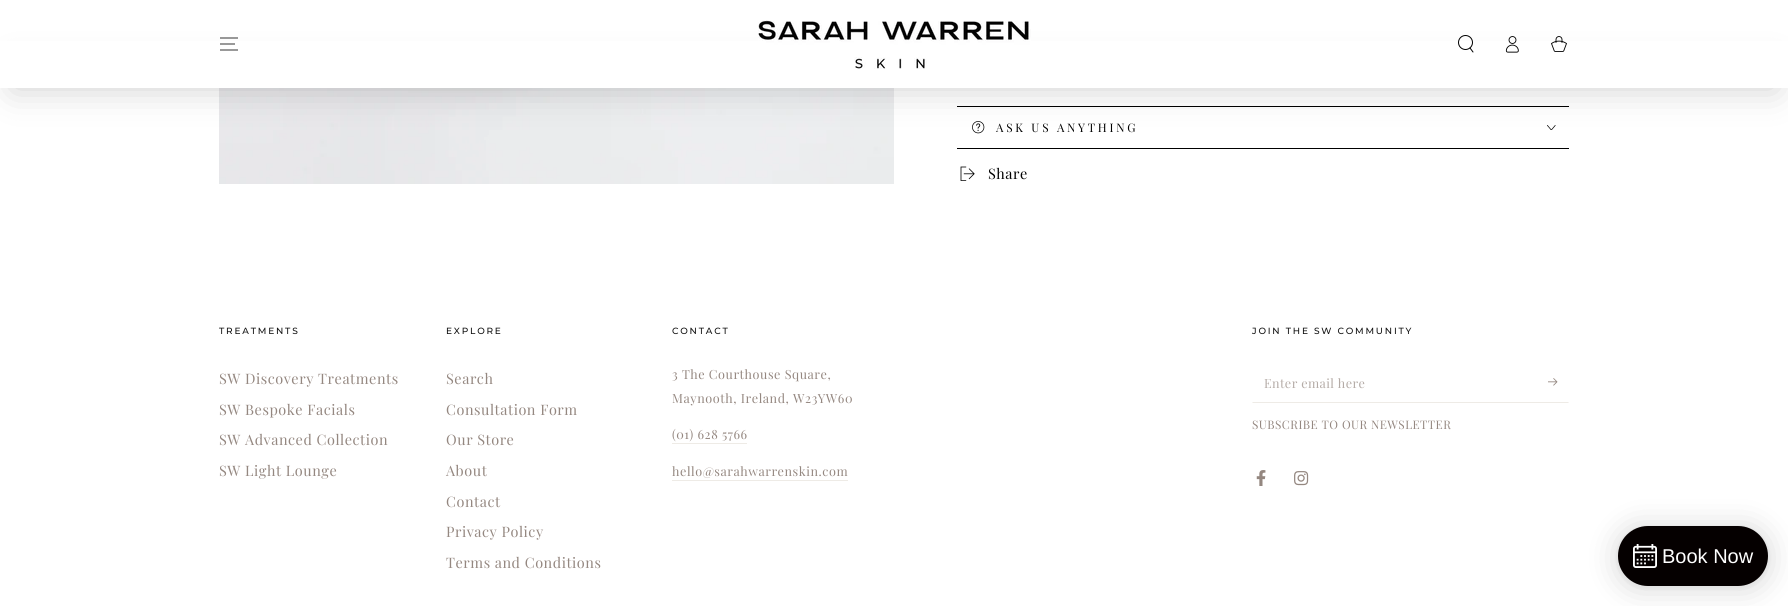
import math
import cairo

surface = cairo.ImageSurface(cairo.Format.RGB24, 1788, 606)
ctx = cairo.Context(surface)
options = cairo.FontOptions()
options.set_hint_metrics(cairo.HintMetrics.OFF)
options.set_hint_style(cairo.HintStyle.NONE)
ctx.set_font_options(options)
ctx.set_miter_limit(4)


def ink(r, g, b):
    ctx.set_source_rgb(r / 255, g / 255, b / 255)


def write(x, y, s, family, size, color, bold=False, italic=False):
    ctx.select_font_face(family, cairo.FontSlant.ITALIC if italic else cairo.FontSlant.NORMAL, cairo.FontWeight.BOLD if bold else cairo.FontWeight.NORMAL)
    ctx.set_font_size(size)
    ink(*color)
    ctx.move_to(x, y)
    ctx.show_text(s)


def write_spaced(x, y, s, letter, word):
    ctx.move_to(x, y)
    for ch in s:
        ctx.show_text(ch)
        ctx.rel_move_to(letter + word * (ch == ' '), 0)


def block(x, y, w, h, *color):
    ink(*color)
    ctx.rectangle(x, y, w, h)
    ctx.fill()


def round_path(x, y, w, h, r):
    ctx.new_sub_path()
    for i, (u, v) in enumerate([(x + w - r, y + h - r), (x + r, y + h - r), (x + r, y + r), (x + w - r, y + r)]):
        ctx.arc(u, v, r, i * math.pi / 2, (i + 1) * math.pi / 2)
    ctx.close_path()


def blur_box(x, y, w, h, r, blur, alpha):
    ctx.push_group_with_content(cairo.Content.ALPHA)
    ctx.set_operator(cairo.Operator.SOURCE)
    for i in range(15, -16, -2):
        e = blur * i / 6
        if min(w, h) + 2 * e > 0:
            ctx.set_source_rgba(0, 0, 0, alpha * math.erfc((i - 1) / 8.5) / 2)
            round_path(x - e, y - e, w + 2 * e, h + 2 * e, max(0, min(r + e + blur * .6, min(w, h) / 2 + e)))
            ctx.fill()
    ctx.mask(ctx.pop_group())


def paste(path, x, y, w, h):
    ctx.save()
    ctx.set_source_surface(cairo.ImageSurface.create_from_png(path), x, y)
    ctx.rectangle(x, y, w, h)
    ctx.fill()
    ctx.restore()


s1 = dict(family="Liberation Sans", size=20, color=(255, 255, 255))

ink(255, 255, 255)
ctx.paint()
paste("pic4.png", 219, 88, 675, 96)
block(957, 106, 612, 1, 0, 0, 0)
paste("pic5.png", 972, 121, 13, 13)
paste("pic6.png", 1547, 125, 9, 5)
ink(0, 0, 0)
blur_box(14, 70, 1761, 18, 9, 18, 0.2)
block(0, 41, 1788, 47, 255, 255, 255)
ctx.new_path()
ctx.move_to(220, 50)
ctx.line_to(238, 50)
ctx.move_to(220, 44)
ctx.line_to(235, 44)
ctx.move_to(220, 38)
ctx.line_to(238, 38)
ink(0, 0, 0)
ctx.set_line_width(0.8)
ctx.stroke()
paste("pic1.png", 758, 20, 273, 49)
ctx.arc(1465.5, 42.5, 7, 0, 2 * math.pi)
ctx.set_line_width(1)
ctx.stroke()
ctx.new_path()
ctx.move_to(1470, 48)
ctx.line_to(1473, 52)
ctx.set_line_cap(cairo.LineCap.ROUND)
ctx.stroke()
paste("pic2.png", 1505, 36, 14, 17)
paste("pic3.png", 1551, 36, 16, 16)
block(957, 148, 612, 1, 0, 0, 0)
ctx.select_font_face("Playfair Display")
ctx.set_font_size(11.75)
write_spaced(996, 132, "ASK US ANYTHING", 2.75, 0)
paste("pic7.png", 960, 166, 15, 15)
ctx.set_font_size(14.4)
write_spaced(988, 179, "Share", 0.55, 0)
ctx.select_font_face("Montserrat Medium")
ctx.set_font_size(9)
ink(18, 18, 18)
write_spaced(219, 334, "TREATMENTS", 1.8, 0)
ctx.select_font_face("Playfair Display")
ctx.set_font_size(14.4)
ink(148, 135, 128)
write_spaced(219, 384, "SW Discovery Treatments", 0.55, 0)
write_spaced(219, 415, "SW Bespoke Facials", 0.55, 0)
write_spaced(219, 445, "SW Advanced Collection", 0.55, 0)
write_spaced(219, 476, "SW Light Lounge", 0.55, 0)
ctx.select_font_face("Montserrat Medium")
ctx.set_font_size(9)
ink(18, 18, 18)
write_spaced(446, 334, "EXPLORE", 1.8, 0)
ctx.select_font_face("Playfair Display")
ctx.set_font_size(14.4)
ink(148, 135, 128)
write_spaced(446, 384, "Search", 0.55, 0)
write_spaced(446, 415, "Consultation Form", 0.55, 0)
write_spaced(446, 445, "Our Store", 0.55, 0)
write_spaced(446, 476, "About", 0.55, 0)
write_spaced(446, 507, "Contact", 0.55, 0)
write_spaced(446, 537, "Privacy Policy", 0.55, 0)
write_spaced(446, 568, "Terms and Conditions", 0.55, 0)
ctx.select_font_face("Montserrat Medium")
ctx.set_font_size(9)
ink(18, 18, 18)
write_spaced(672, 334, "CONTACT", 1.8, 0)
ctx.select_font_face("Playfair Display")
ctx.set_font_size(12.6)
ink(148, 135, 128)
write_spaced(672, 379, "3 The Courthouse Square,", 0.55, 0)
write_spaced(672, 403, "Maynooth, Ireland, W23YW60", 0.55, 0)
write_spaced(672, 439, "(01) 628 5766", 0.55, 0)
block(672, 443, 75, 1, 238, 235, 230)
ink(148, 135, 128)
write_spaced(672, 476, "hello@sarahwarrenskin.com", 0.55, 0)
block(672, 480, 176, 1, 238, 235, 230)
ctx.select_font_face("Montserrat Medium")
ctx.set_font_size(9)
ink(18, 18, 18)
write_spaced(1252, 334, "JOIN THE SW COMMUNITY", 1.8, 0)
ink(238, 235, 230)
ctx.new_path()
ctx.move_to(1569, 403)
ctx.line_to(1252, 403)
ctx.line_to(1253, 402)
ctx.line_to(1568, 402)
ctx.close_path()
ctx.fill()
ctx.select_font_face("Playfair Display")
ctx.set_font_size(12.6)
ink(180, 171, 166)
write_spaced(1264, 388, "Enter email here", 0.4, 0)
paste("pic8.png", 1548, 378, 10, 8)
ctx.set_font_size(11.75)
ink(148, 135, 128)
write_spaced(1252, 429, "SUBSCRIBE TO OUR NEWSLETTER", 0.45, 0)
paste("pic9.png", 1256, 470, 10, 16)
paste("pic10.png", 1294, 471, 15, 15)
ink(0, 0, 0)
blur_box(1618, 528, 150, 60, 30, 16, 0.16)
blur_box(1618, 527, 150, 60, 30, 3, 0.06)
ink(5, 0, 0)
round_path(1618, 526, 150, 60, 30)
ctx.fill()
paste("pic11.png", 1633, 544, 24, 24)
write(1662, 563, "Book Now", **s1)
surface.write_to_png("screenshot.png")
